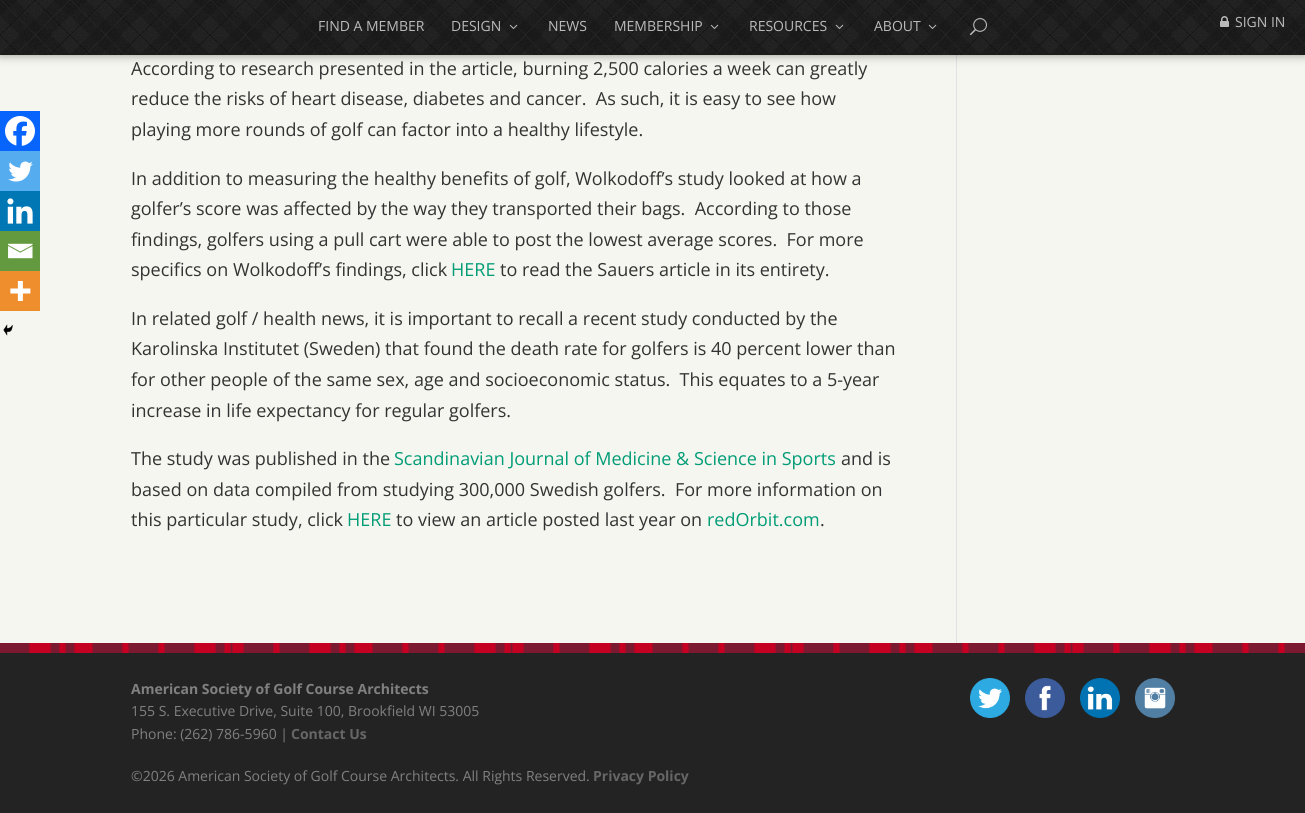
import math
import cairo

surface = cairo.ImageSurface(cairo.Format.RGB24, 1305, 813)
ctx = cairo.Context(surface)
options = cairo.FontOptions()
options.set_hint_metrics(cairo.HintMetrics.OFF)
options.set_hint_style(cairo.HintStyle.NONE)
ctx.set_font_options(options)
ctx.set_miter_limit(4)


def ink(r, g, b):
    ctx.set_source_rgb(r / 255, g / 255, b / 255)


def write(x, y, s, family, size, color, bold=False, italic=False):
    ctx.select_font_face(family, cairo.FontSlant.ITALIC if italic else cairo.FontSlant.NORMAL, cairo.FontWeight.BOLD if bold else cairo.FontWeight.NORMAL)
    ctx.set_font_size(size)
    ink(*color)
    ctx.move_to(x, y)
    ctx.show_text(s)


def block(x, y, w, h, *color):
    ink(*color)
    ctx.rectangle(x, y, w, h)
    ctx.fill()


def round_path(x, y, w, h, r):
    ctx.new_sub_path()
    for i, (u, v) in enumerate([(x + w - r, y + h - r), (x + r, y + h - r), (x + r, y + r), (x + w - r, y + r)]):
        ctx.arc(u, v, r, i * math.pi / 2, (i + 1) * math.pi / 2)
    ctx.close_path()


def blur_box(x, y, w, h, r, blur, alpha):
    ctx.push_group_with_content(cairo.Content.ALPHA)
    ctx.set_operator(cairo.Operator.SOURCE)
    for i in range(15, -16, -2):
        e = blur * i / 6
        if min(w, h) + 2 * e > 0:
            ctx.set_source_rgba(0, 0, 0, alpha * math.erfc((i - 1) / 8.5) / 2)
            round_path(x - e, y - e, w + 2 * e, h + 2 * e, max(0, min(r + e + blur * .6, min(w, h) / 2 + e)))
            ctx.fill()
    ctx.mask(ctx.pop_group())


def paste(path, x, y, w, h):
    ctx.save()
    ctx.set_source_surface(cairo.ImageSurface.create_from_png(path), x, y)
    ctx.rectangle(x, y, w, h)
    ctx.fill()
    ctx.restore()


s1 = dict(family="Open Sans", size=14, color=(187, 187, 187))
s2 = dict(family="Open Sans", size=18, color=(51, 51, 51))
s3 = dict(family="Open Sans", size=18, color=(0, 156, 118))
s4 = dict(family="Open Sans", size=14, color=(128, 128, 128), bold=True)
s5 = dict(family="Open Sans", size=14, color=(128, 128, 128))
s6 = dict(family="Open Sans", size=14, color=(102, 102, 102), bold=True)

ink(246, 246, 240)
ctx.paint()
block(956, 55, 1, 588, 226, 226, 226)
ink(0, 0, 0)
blur_box(0, 0, 1305, 55, 0, 5, 0.4)
paste("pic1.png", 0, 0, 1305, 55)
write(318, 31, "FIND A MEMBER", **s1)
write(451, 31, "DESIGN", **s1)
paste("pic2.png", 509, 24, 9, 5)
write(548, 31, "NEWS", **s1)
write(614, 31, "MEMBERSHIP", **s1)
paste("pic3.png", 710, 24, 9, 5)
write(749, 31, "RESOURCES", **s1)
paste("pic4.png", 835, 24, 9, 5)
write(874, 31, "ABOUT", **s1)
paste("pic5.png", 928, 24, 9, 5)
paste("pic6.png", 1220, 16, 9, 11)
write(1235, 27, "SIGN IN", **s1)
paste("pic7.png", 970, 18, 17, 18)
write(131, 75, "According to research presented in the article, burning 2,500 calories a week can greatly", **s2)
write(131, 105, "reduce the risks of heart disease, diabetes and cancer.  As such, it is easy to see how", **s2)
write(131, 136, "playing more rounds of golf can factor into a healthy lifestyle.", **s2)
block(0, 111, 40, 40, 7, 101, 254)
paste("pic8.png", 5, 116, 30, 30)
block(0, 151, 40, 40, 85, 172, 238)
paste("pic9.png", 8, 161, 25, 21)
block(0, 191, 40, 40, 0, 119, 181)
paste("pic10.png", 7, 198, 26, 26)
block(0, 231, 40, 40, 100, 154, 63)
paste("pic11.png", 8, 243, 25, 16)
block(0, 271, 40, 40, 238, 142, 45)
paste("pic12.png", 10, 281, 21, 20)
paste("pic13.png", 3, 324, 10, 12)
write(131, 185, "In addition to measuring the healthy benefits of golf, Wolkodoff’s study looked at how a", **s2)
write(131, 215, "golfer’s score was affected by the way they transported their bags.  According to those", **s2)
write(131, 246, "findings, golfers using a pull cart were able to post the lowest average scores.  For more", **s2)
write(131, 276, "specifics on Wolkodoff’s findings, click", **s2)
write(451, 276, "HERE", **s3)
write(500, 276, "to read the Sauers article in its entirety.", **s2)
write(131, 325, "In related golf / health news, it is important to recall a recent study conducted by the", **s2)
write(131, 355, "Karolinska Institutet (Sweden) that found the death rate for golfers is 40 percent lower than", **s2)
write(131, 386, "for other people of the same sex, age and socioeconomic status.  This equates to a 5-year", **s2)
write(131, 417, "increase in life expectancy for regular golfers.", **s2)
write(131, 465, "The study was published in the", **s2)
write(394, 465, "Scandinavian Journal of Medicine & Science in Sports", **s3)
write(841, 465, "and is", **s2)
write(131, 496, "based on data compiled from studying 300,000 Swedish golfers.  For more information on", **s2)
write(131, 526, "this particular study, click", **s2)
write(347, 526, "HERE", **s3)
write(396, 526, "to view an article posted last year on", **s2)
write(707, 526, "redOrbit.com", **s3)
write(820, 526, ".", **s2)
paste("pic14.png", 0, 643, 1305, 10)
block(0, 653, 1305, 160, 35, 35, 35)
write(131, 694, "American Society of Golf Course Architects", **s4)
write(131, 716, "155 S. Executive Drive, Suite 100, Brookfield WI 53005", **s5)
write(131, 739, "Phone: (262) 786-5960 |", **s5)
write(291, 739, "Contact Us", **s6)
paste("pic15.png", 970, 678, 40, 40)
paste("pic16.png", 1025, 678, 40, 40)
paste("pic17.png", 1080, 678, 40, 40)
paste("pic18.png", 1135, 678, 40, 40)
write(131, 781, "©2026 American Society of Golf Course Architects. All Rights Reserved.", **s5)
write(593, 781, "Privacy Policy", **s6)
surface.write_to_png("screenshot.png")
